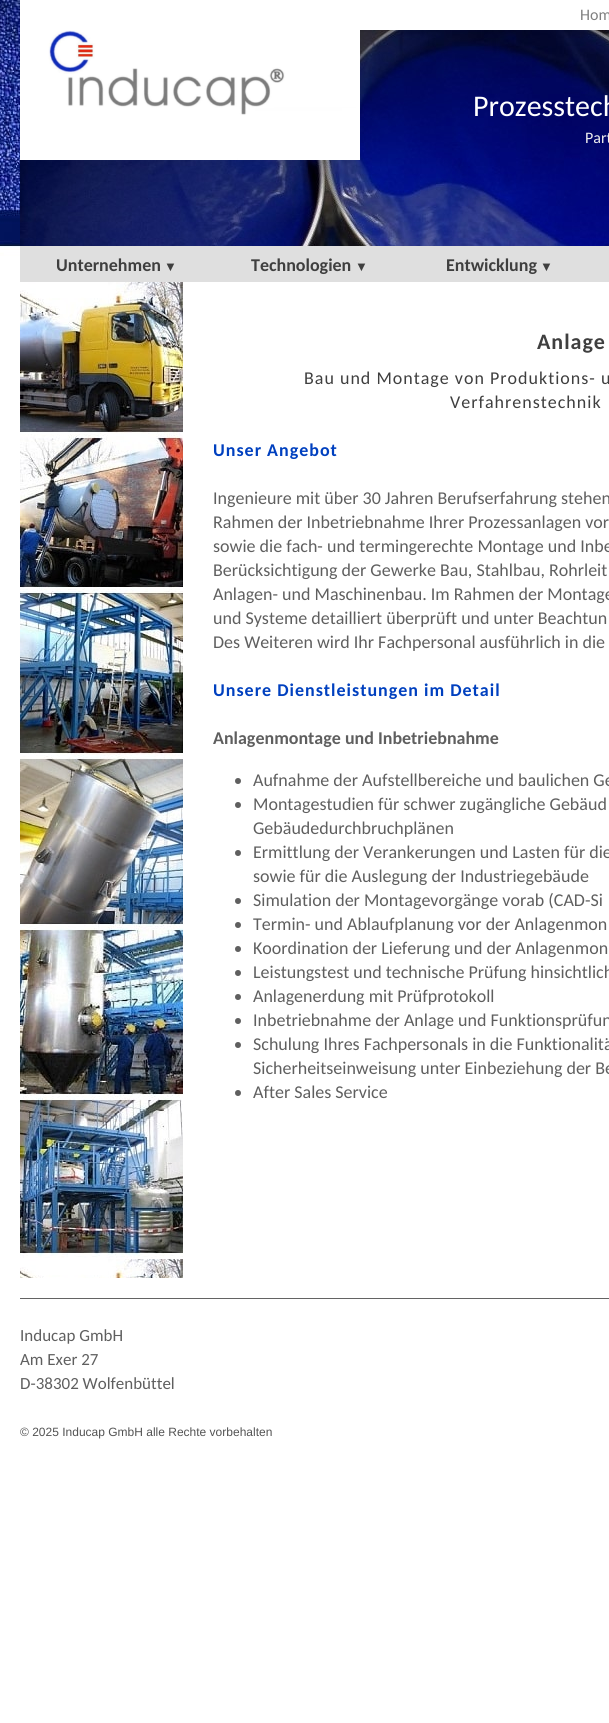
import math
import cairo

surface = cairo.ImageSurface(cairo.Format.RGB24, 609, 1723)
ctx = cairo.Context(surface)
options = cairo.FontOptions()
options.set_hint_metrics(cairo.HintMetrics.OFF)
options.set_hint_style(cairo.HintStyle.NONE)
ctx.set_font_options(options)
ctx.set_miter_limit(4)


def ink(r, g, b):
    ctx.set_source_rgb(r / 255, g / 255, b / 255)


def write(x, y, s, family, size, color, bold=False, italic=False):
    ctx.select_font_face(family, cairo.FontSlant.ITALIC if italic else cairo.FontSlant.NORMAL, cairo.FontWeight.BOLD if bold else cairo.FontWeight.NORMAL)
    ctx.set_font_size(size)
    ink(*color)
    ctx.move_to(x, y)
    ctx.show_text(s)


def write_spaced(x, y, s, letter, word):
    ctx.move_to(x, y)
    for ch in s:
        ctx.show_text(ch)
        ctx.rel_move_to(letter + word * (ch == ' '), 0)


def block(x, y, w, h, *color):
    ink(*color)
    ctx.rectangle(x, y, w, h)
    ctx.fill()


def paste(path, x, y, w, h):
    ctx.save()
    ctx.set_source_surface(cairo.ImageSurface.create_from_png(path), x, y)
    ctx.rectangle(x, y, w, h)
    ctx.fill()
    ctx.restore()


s1 = dict(family="Carlito", size=16, color=(127, 127, 127))
s2 = dict(family="Carlito", size=30, color=(255, 255, 255))
s3 = dict(family="Carlito", size=16, color=(239, 239, 239))
s4 = dict(family="Carlito", size=18, color=(63, 63, 63), bold=True)
s5 = dict(family="Liberation Serif", size=13, color=(63, 63, 63))
s6 = dict(family="Carlito", size=18, color=(95, 95, 95))
s7 = dict(family="Carlito", size=18, color=(95, 95, 95), bold=True)
s8 = dict(family="Carlito", size=17, color=(95, 95, 95))
s9 = dict(family="Liberation Sans", size=12, color=(83, 83, 83))

ink(255, 255, 255)
ctx.paint()
paste("pic1.png", 0, 0, 20, 256)
write(580, 20, "Hom", **s1)
paste("pic2.png", 20, 30, 589, 216)
paste("pic3.png", 20, 30, 340, 130)
write(473, 116, "Prozesstech", **s2)
write(585, 143, "Part", **s3)
block(20, 246, 589, 36, 223, 223, 223)
write(56, 271, "Unternehmen", **s4)
write(164, 271, "▼", **s5)
write(251, 271, "Technologien", **s4)
write(355, 271, "▼", **s5)
write(446, 271, "Entwicklung", **s4)
write(540, 271, "▼", **s5)
paste("pic4.png", 20, 282, 163, 996)
ctx.select_font_face("Carlito", cairo.FontSlant.NORMAL, cairo.FontWeight.BOLD)
ctx.set_font_size(22)
write_spaced(537, 349, "Anlage", 1, 0)
ctx.select_font_face("Carlito")
ctx.set_font_size(18)
write_spaced(304, 384, "Bau und Montage von Produktions- u", 1, 0)
write_spaced(450, 408, "Verfahrenstechnik", 1, 0)
ctx.select_font_face("Carlito", cairo.FontSlant.NORMAL, cairo.FontWeight.BOLD)
ink(0, 64, 191)
write_spaced(213, 456, "Unser Angebot", 1, 0)
write(213, 504, "Ingenieure mit über 30 Jahren Berufserfahrung stehen", **s6)
write(213, 528, "Rahmen der Inbetriebnahme Ihrer Prozessanlagen vor", **s6)
write(213, 552, "sowie die fach- und termingerechte Montage und Inbe", **s6)
write(213, 576, "Berücksichtigung der Gewerke Bau, Stahlbau, Rohrleit", **s6)
write(213, 600, "Anlagen- und Maschinenbau. Im Rahmen der Montage", **s6)
write(213, 624, "und Systeme detailliert überprüft und unter Beachtun", **s6)
write(213, 648, "Des Weiteren wird Ihr Fachpersonal ausführlich in die", **s6)
ctx.select_font_face("Carlito", cairo.FontSlant.NORMAL, cairo.FontWeight.BOLD)
ink(0, 64, 191)
write_spaced(213, 696, "Unsere Dienstleistungen im Detail", 1, 0)
write(213, 744, "Anlagenmontage und Inbetriebnahme", **s7)
ctx.new_path()
ctx.arc(238, 781, 3, 0, 2 * math.pi)
ctx.fill()
write(253, 786, "Aufnahme der Aufstellbereiche und baulichen Ge", **s6)
ctx.new_path()
ctx.arc(238, 805, 3, 0, 2 * math.pi)
ctx.fill()
write(253, 810, "Montagestudien für schwer zugängliche Gebäud", **s6)
write(253, 834, "Gebäudedurchbruchplänen", **s6)
ctx.new_path()
ctx.arc(238, 853, 3, 0, 2 * math.pi)
ctx.fill()
write(253, 858, "Ermittlung der Verankerungen und Lasten für die", **s6)
write(253, 882, "sowie für die Auslegung der Industriegebäude", **s6)
ctx.new_path()
ctx.arc(238, 901, 3, 0, 2 * math.pi)
ctx.fill()
write(253, 906, "Simulation der Montagevorgänge vorab (CAD-Si", **s6)
ctx.new_path()
ctx.arc(238, 925, 3, 0, 2 * math.pi)
ctx.fill()
write(253, 930, "Termin- und Ablaufplanung vor der Anlagenmon", **s6)
ctx.new_path()
ctx.arc(238, 949, 3, 0, 2 * math.pi)
ctx.fill()
write(253, 954, "Koordination der Lieferung und der Anlagenmon", **s6)
ctx.new_path()
ctx.arc(238, 973, 3, 0, 2 * math.pi)
ctx.fill()
write(253, 978, "Leistungstest und technische Prüfung hinsichtlich", **s6)
ctx.new_path()
ctx.arc(238, 997, 3, 0, 2 * math.pi)
ctx.fill()
write(253, 1002, "Anlagenerdung mit Prüfprotokoll", **s6)
ctx.new_path()
ctx.arc(238, 1021, 3, 0, 2 * math.pi)
ctx.fill()
write(253, 1026, "Inbetriebnahme der Anlage und Funktionsprüfun", **s6)
ctx.new_path()
ctx.arc(238, 1045, 3, 0, 2 * math.pi)
ctx.fill()
write(253, 1050, "Schulung Ihres Fachpersonals in die Funktionalitä", **s6)
write(253, 1074, "Sicherheitseinweisung unter Einbeziehung der Be", **s6)
ctx.new_path()
ctx.arc(238, 1093, 3, 0, 2 * math.pi)
ctx.fill()
write(253, 1098, "After Sales Service", **s6)
block(20, 1298, 589, 1, 99, 99, 99)
write(20, 1341, "Inducap GmbH", **s8)
write(20, 1365, "Am Exer 27", **s8)
write(20, 1389, "D-38302 Wolfenbüttel", **s8)
write(20, 1436, "© 2025 Inducap GmbH alle Rechte vorbehalten", **s9)
surface.write_to_png("screenshot.png")
